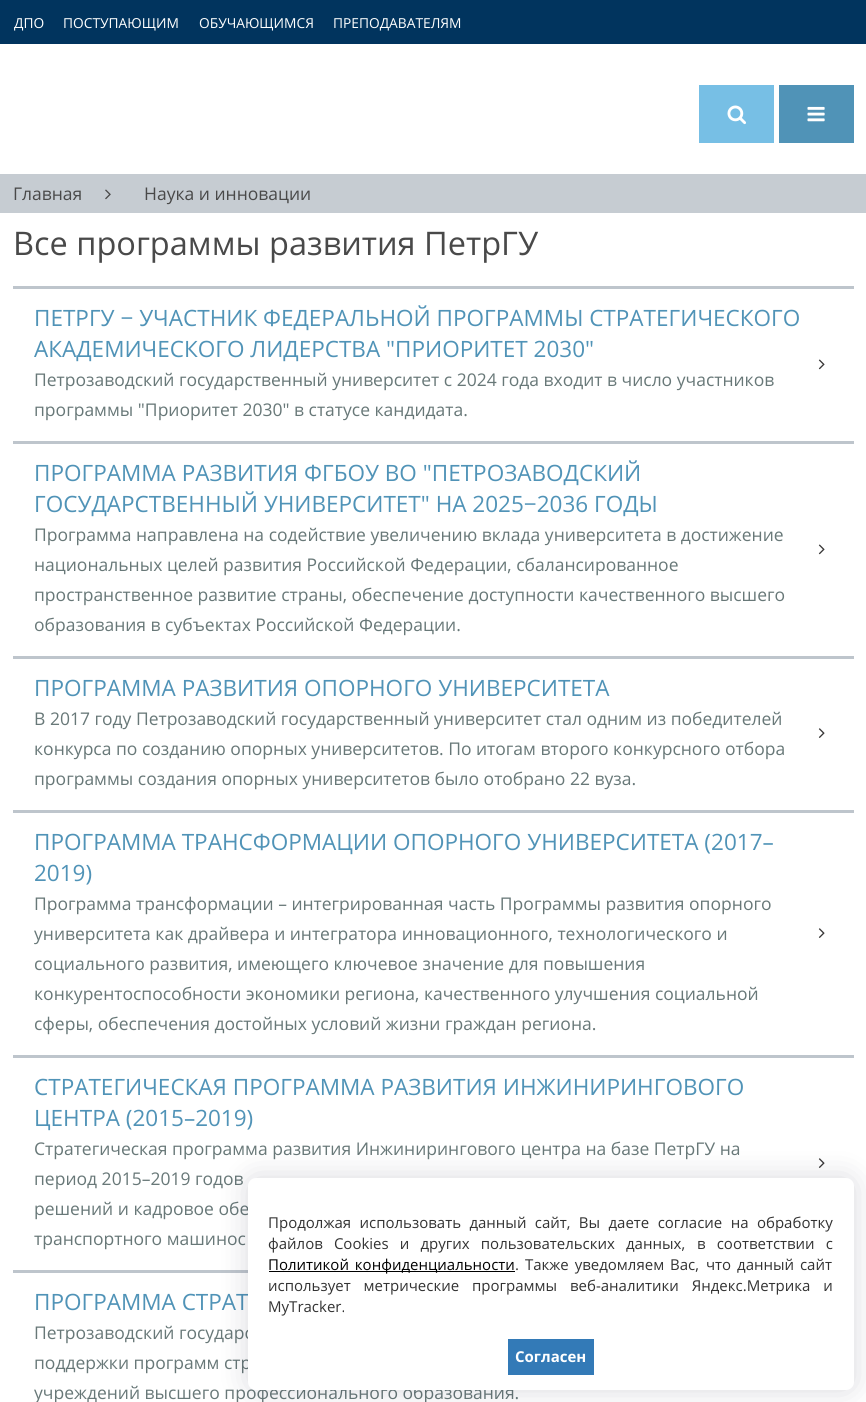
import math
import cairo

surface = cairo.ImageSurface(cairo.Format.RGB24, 866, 1402)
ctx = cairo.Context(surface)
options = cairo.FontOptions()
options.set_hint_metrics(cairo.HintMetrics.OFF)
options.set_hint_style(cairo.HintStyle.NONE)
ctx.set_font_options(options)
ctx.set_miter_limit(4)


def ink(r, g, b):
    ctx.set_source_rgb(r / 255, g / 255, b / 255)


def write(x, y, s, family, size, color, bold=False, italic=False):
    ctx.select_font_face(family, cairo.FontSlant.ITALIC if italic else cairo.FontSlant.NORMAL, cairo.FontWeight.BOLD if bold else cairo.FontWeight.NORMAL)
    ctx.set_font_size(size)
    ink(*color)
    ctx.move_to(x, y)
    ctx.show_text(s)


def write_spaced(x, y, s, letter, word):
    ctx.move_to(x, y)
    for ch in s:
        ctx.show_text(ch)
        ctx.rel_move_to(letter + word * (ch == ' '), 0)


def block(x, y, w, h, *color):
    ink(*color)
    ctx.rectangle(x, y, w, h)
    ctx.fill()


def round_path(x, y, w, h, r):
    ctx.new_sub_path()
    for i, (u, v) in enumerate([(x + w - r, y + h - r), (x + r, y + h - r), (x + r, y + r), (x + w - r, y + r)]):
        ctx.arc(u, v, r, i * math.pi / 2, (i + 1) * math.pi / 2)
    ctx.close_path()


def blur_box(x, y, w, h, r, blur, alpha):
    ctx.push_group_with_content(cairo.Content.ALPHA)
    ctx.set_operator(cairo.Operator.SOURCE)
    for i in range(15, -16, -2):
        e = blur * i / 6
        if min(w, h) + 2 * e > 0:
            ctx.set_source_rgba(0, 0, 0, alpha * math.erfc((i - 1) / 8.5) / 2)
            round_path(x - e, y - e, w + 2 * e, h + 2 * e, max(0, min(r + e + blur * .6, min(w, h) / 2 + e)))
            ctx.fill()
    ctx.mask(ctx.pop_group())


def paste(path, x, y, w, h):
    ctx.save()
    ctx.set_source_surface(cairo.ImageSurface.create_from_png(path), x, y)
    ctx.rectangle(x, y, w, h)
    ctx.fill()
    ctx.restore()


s1 = dict(family="Open Sans", size=13.75, color=(255, 255, 255))
s2 = dict(family="Open Sans", size=17.5, color=(73, 73, 73))
s3 = dict(family="Open Sans", size=32.5, color=(73, 73, 73))
s4 = dict(family="Open Sans", size=22.5, color=(80, 147, 183))
s5 = dict(family="Open Sans", size=17.5, color=(104, 120, 120))
s6 = dict(family="Open Sans", size=15, color=(51, 51, 51))
s7 = dict(family="Open Sans", size=15, color=(255, 255, 255), bold=True)

ink(255, 255, 255)
ctx.paint()
block(0, 0, 866, 44, 1, 52, 94)
write(14, 28, "ДПО", **s1)
write(63, 28, "ПОСТУПАЮЩИМ", **s1)
write(199, 28, "ОБУЧАЮЩИМСЯ", **s1)
write(333, 28, "ПРЕПОДАВАТЕЛЯМ", **s1)
block(699, 85, 75, 58, 119, 191, 229)
paste("pic1.png", 727, 105, 19, 20)
block(779, 85, 75, 58, 80, 147, 183)
paste("pic2.png", 807, 106, 18, 16)
block(0, 174, 866, 39, 198, 204, 210)
write(13, 200, "Главная", **s2)
paste("pic3.png", 105, 189, 6, 11)
write(144, 200, "Наука и инновации", **s2)
write(13, 255, "Все программы развития ПетрГУ", **s3)
block(13, 286, 841, 3, 190, 197, 204)
block(13, 441, 841, 3, 190, 197, 204)
write(34, 326, "ПЕТРГУ − УЧАСТНИК ФЕДЕРАЛЬНОЙ ПРОГРАММЫ СТРАТЕГИЧЕСКОГО", **s4)
write(34, 357, "АКАДЕМИЧЕСКОГО ЛИДЕРСТВА \"ПРИОРИТЕТ 2030\"", **s4)
write(34, 386, "Петрозаводский государственный университет с 2024 года входит в число участников", **s5)
write(34, 416, "программы \"Приоритет 2030\" в статусе кандидата.", **s5)
paste("pic4.png", 818, 359, 7, 11)
block(13, 656, 841, 3, 190, 197, 204)
write(34, 481, "ПРОГРАММА РАЗВИТИЯ ФГБОУ ВО \"ПЕТРОЗАВОДСКИЙ", **s4)
write(34, 512, "ГОСУДАРСТВЕННЫЙ УНИВЕРСИТЕТ\" НА 2025−2036 ГОДЫ", **s4)
write(34, 541, "Программа направлена на содействие увеличению вклада университета в достижение", **s5)
write(34, 571, "национальных целей развития Российской Федерации, сбалансированное", **s5)
write(34, 601, "пространственное развитие страны, обеспечение доступности качественного высшего", **s5)
write(34, 631, "образования в субъектах Российской Федерации.", **s5)
paste("pic4.png", 818, 544, 7, 11)
block(13, 810, 841, 3, 190, 197, 204)
write(34, 696, "ПРОГРАММА РАЗВИТИЯ ОПОРНОГО УНИВЕРСИТЕТА", **s4)
write(34, 725, "В 2017 году Петрозаводский государственный университет стал одним из победителей", **s5)
write(34, 755, "конкурса по созданию опорных университетов. По итогам второго конкурсного отбора", **s5)
write(34, 785, "программы создания опорных университетов было отобрано 22 вуза.", **s5)
paste("pic5.png", 818, 728, 7, 10)
block(13, 1055, 841, 3, 190, 197, 204)
write(34, 850, "ПРОГРАММА ТРАНСФОРМАЦИИ ОПОРНОГО УНИВЕРСИТЕТА (2017–", **s4)
write(34, 881, "2019)", **s4)
write(34, 910, "Программа трансформации – интегрированная часть Программы развития опорного", **s5)
write(34, 940, "университета как драйвера и интегратора инновационного, технологического и", **s5)
write(34, 970, "социального развития, имеющего ключевое значение для повышения", **s5)
write(34, 1000, "конкурентоспособности экономики региона, качественного улучшения социальной", **s5)
write(34, 1030, "сферы, обеспечения достойных условий жизни граждан региона.", **s5)
paste("pic5.png", 818, 928, 7, 10)
block(13, 1270, 235, 3, 190, 197, 204)
write(34, 1095, "СТРАТЕГИЧЕСКАЯ ПРОГРАММА РАЗВИТИЯ ИНЖИНИРИНГОВОГО", **s4)
write(34, 1126, "ЦЕНТРА (2015–2019)", **s4)
write(34, 1155, "Стратегическая программа развития Инжинирингового центра на базе ПетрГУ на", **s5)
write(34, 1185, "период 2015–2019 годов", **s5)
write(34, 1215, "решений и кадровое обе", **s5)
write(34, 1245, "транспортного машинос", **s5)
paste("pic5.png", 818, 1158, 7, 10)
write(34, 1310, "ПРОГРАММА СТРАТ", **s4)
write(34, 1339, "Петрозаводский государс", **s5)
write(34, 1369, "поддержки программ стр", **s5)
write(34, 1399, "учреждений высшего профессионального образования.", **s5)
ink(5, 0, 31)
blur_box(248, 1178, 606, 212, 8, 15, 0.15)
ink(255, 255, 255)
round_path(248, 1178, 606, 212, 8)
ctx.fill()
ctx.set_font_size(15)
ink(51, 51, 51)
write_spaced(268, 1228, "Продолжая использовать данный сайт, Вы даете согласие на обработку", 0, 4.5)
write_spaced(268, 1249, "файлов Cookies и других пользовательских данных,", 0, 7.25)
write_spaced(697, 1249, "в соответствии с", 0, 7.25)
block(269, 1271, 246, 1, 0, 0, 0)
write_spaced(268, 1270, "Политикой конфиденциальности", 0, 2)
ink(51, 51, 51)
write_spaced(515, 1270, ". Также уведомляем Вас,", 0, 2)
write_spaced(706, 1270, "что данный сайт", 0, 2)
write_spaced(268, 1291, "использует метрические программы веб-аналитики Яндекс.Метрика и", 0, 9)
write(268, 1312, "MyTracker.", **s6)
block(508, 1339, 86, 36, 51, 122, 183)
write(515, 1362, "Согласен", **s7)
surface.write_to_png("screenshot.png")
